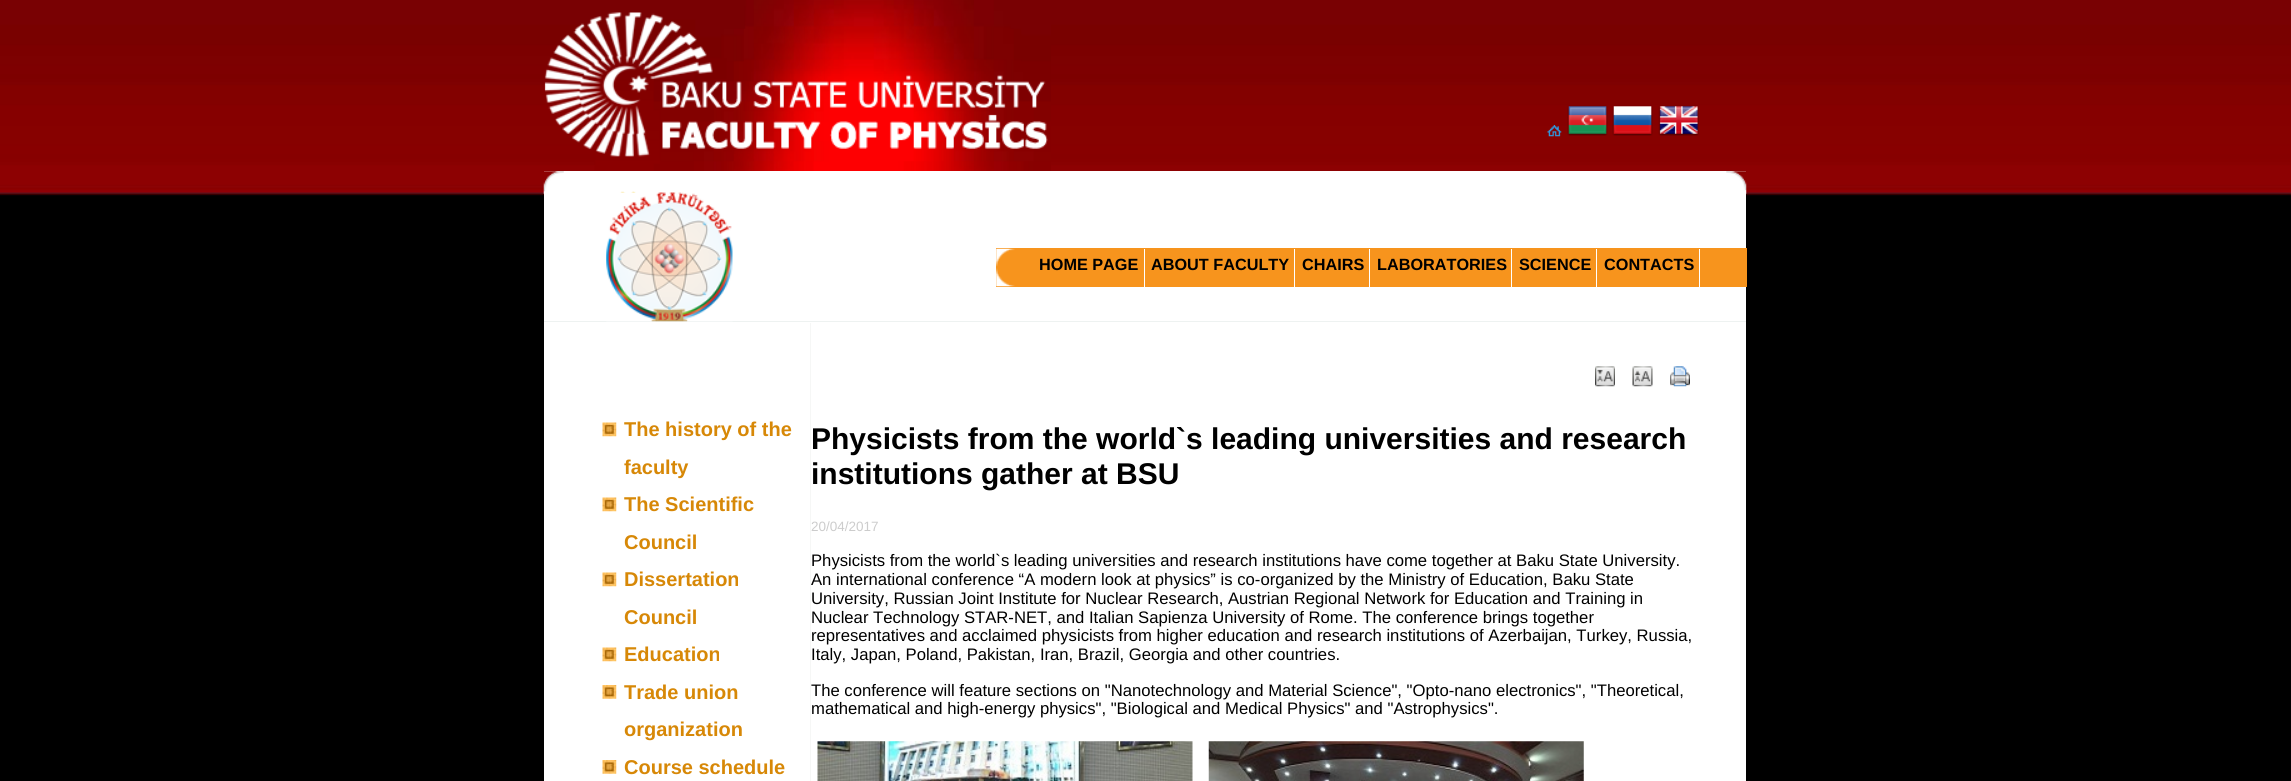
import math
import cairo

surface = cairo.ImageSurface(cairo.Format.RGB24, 2291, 781)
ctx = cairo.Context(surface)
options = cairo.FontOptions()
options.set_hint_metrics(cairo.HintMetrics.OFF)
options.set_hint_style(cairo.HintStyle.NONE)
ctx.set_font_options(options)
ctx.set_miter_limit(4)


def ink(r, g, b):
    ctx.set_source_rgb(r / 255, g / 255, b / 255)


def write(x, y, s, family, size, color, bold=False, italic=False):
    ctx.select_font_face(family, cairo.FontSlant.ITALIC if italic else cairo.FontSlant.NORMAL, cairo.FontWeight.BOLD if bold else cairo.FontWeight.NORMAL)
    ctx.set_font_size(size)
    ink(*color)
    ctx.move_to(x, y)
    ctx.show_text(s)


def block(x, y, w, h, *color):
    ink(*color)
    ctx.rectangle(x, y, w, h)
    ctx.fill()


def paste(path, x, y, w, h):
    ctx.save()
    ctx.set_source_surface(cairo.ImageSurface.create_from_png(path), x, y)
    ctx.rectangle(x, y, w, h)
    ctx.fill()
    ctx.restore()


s1 = dict(family="Liberation Sans", size=16.25, color=(0, 0, 0), bold=True)
s2 = dict(family="Liberation Sans", size=20, color=(215, 136, 7), bold=True)
s3 = dict(family="Liberation Sans", size=30, color=(0, 0, 0), bold=True)
s4 = dict(family="Liberation Sans", size=13.5, color=(204, 204, 204))
s5 = dict(family="Liberation Sans", size=16.67, color=(0, 0, 0))

ink(0, 0, 0)
ctx.paint()
paste("pic1.png", 0, 0, 2291, 196)
paste("pic2.png", 544, 0, 507, 171)
paste("pic3.png", 1547, 125, 15, 12)
paste("pic4.png", 1567, 105, 41, 31)
paste("pic5.png", 1612, 105, 41, 31)
paste("pic6.png", 1658, 105, 41, 31)
block(544, 171, 1202, 610, 255, 255, 255)
paste("pic7.png", 543, 171, 1204, 23)
block(544, 321, 1202, 1, 238, 242, 241)
paste("pic8.png", 606, 192, 127, 130)
block(996, 248, 751, 39, 247, 148, 29)
paste("pic9.png", 996, 248, 19, 39)
block(1144, 249, 1, 44, 255, 255, 255)
write(1039, 270, "HOME PAGE", **s1)
block(1294, 249, 1, 44, 255, 255, 255)
write(1151, 270, "ABOUT FACULTY", **s1)
block(1369, 249, 1, 44, 255, 255, 255)
write(1302, 270, "CHAIRS", **s1)
block(1511, 249, 1, 44, 255, 255, 255)
write(1377, 270, "LABORATORIES", **s1)
block(1596, 249, 1, 44, 255, 255, 255)
write(1519, 270, "SCIENCE", **s1)
block(1699, 249, 1, 44, 255, 255, 255)
write(1604, 270, "CONTACTS", **s1)
paste("pic10.png", 602, 422, 15, 15)
write(624, 436, "The history of the", **s2)
write(624, 474, "faculty", **s2)
paste("pic10.png", 602, 497, 15, 15)
write(624, 511, "The Scientific", **s2)
write(624, 549, "Council", **s2)
paste("pic10.png", 602, 572, 15, 15)
write(624, 586, "Dissertation", **s2)
write(624, 624, "Council", **s2)
paste("pic10.png", 602, 647, 15, 15)
write(624, 661, "Education", **s2)
paste("pic11.png", 602, 685, 15, 14)
write(624, 699, "Trade union", **s2)
write(624, 736, "organization", **s2)
paste("pic11.png", 602, 760, 15, 14)
write(624, 774, "Course schedule", **s2)
block(810, 323, 1, 458, 246, 247, 246)
paste("pic12.png", 1595, 366, 20, 21)
paste("pic13.png", 1632, 366, 21, 21)
paste("pic14.png", 1670, 366, 20, 21)
write(811, 449, "Physicists from the world`s leading universities and research", **s3)
write(811, 484, "institutions gather at BSU", **s3)
write(811, 531, "20/04/2017", **s4)
write(811, 566, "Physicists from the world`s leading universities and research institutions have come together at Baku State University.", **s5)
write(811, 585, "An international conference “A modern look at physics” is co-organized by the Ministry of Education, Baku State", **s5)
write(811, 604, "University, Russian Joint Institute for Nuclear Research, Austrian Regional Network for Education and Training in", **s5)
write(811, 623, "Nuclear Technology STAR-NET, and Italian Sapienza University of Rome. The conference brings together", **s5)
write(811, 641, "representatives and acclaimed physicists from higher education and research institutions of Azerbaijan, Turkey, Russia,", **s5)
write(811, 660, "Italy, Japan, Poland, Pakistan, Iran, Brazil, Georgia and other countries.", **s5)
write(811, 696, "The conference will feature sections on \"Nanotechnology and Material Science\", \"Opto-nano electronics\", \"Theoretical,", **s5)
write(811, 714, "mathematical and high-energy physics\", \"Biological and Medical Physics\" and \"Astrophysics\".", **s5)
paste("pic15.png", 817, 741, 376, 40)
paste("pic16.png", 1208, 741, 376, 40)
surface.write_to_png("screenshot.png")
